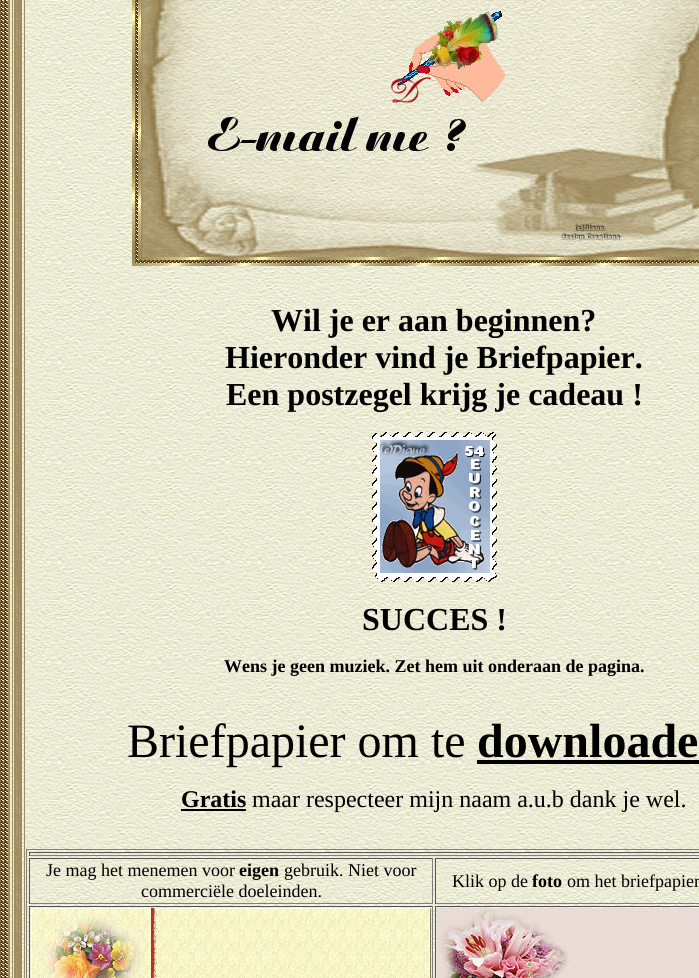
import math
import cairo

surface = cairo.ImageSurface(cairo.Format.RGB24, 699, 978)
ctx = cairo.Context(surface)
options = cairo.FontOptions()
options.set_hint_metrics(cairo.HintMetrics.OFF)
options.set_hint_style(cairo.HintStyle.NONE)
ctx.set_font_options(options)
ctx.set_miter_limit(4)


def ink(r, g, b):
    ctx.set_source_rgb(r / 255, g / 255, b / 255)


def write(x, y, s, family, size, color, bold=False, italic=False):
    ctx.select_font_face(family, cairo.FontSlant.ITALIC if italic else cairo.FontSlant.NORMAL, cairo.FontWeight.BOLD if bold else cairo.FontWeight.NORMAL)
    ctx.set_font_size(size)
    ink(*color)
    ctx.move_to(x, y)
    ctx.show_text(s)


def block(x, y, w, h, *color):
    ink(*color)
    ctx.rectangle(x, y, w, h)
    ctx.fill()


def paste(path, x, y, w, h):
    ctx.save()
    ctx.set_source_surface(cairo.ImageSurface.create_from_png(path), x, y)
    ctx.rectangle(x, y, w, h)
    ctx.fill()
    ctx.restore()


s1 = dict(family="Liberation Serif", size=32, color=(0, 0, 0), bold=True)
s2 = dict(family="Liberation Serif", size=18, color=(0, 0, 0), bold=True)
s3 = dict(family="Liberation Serif", size=48, color=(0, 0, 0))
s4 = dict(family="Liberation Serif", size=48, color=(0, 0, 0), bold=True)
s5 = dict(family="Liberation Serif", size=24, color=(0, 0, 0), bold=True)
s6 = dict(family="Liberation Serif", size=24, color=(0, 0, 0))
s7 = dict(family="Liberation Serif", size=18, color=(0, 0, 0))

ink(255, 255, 255)
ctx.paint()
paste("pic1.png", 0, 0, 8, 978)
paste("pic2.png", 10, 0, 4, 978)
ctx.rectangle(9, -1, 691, 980)
ink(157, 140, 94)
ctx.stroke()
ctx.rectangle(12.5, -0.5, 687, 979)
ctx.set_line_width(1)
ctx.stroke()
paste("pic3.png", 16, 0, 4, 978)
ctx.rectangle(15, -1, 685, 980)
ctx.set_line_width(2)
ctx.stroke()
ctx.rectangle(18.5, -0.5, 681, 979)
ctx.set_line_width(1)
ctx.stroke()
paste("pic4.png", 22, 0, 677, 978)
ctx.rectangle(21, -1, 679, 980)
ctx.set_line_width(2)
ctx.stroke()
ctx.rectangle(24.5, -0.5, 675, 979)
ctx.set_line_width(1)
ctx.stroke()
paste("pic5.png", 132, 0, 567, 266)
write(271, 331, "Wil je er aan beginnen?", **s1)
write(225, 368, "Hieronder vind je Briefpapier.", **s1)
write(226, 405, "Een postzegel krijg je cadeau !", **s1)
paste("pic6.png", 372, 432, 125, 150)
write(362, 630, "SUCCES !", **s1)
write(224, 672, "Wens je geen muziek. Zet hem uit onderaan de pagina.", **s2)
write(127, 757, "Briefpapier om te", **s3)
write(477, 757, "downloade", **s4)
block(477, 760, 222, 4, 0, 0, 0)
write(181, 807, "Gratis", **s5)
block(181, 809, 65, 2, 0, 0, 0)
write(252, 807, "maar respecteer mijn naam a.u.b dank je wel.", **s6)
paste("pic7.png", 27, 850, 672, 128)
block(26, 849, 673, 1, 128, 128, 128)
block(26, 849, 1, 129, 128, 128, 128)
block(29, 852, 670, 1, 85, 85, 85)
block(29, 855, 670, 1, 128, 128, 128)
block(29, 852, 1, 4, 85, 85, 85)
block(29, 858, 404, 1, 85, 85, 85)
block(432, 858, 1, 46, 128, 128, 128)
block(29, 903, 404, 1, 128, 128, 128)
block(29, 858, 1, 46, 85, 85, 85)
write(46, 876, "Je mag het menemen voor", **s7)
write(239, 876, "eigen", **s2)
write(284, 876, "gebruik. Niet voor", **s7)
write(141, 897, "commerciële doeleinden.", **s7)
block(435, 858, 264, 1, 85, 85, 85)
block(435, 903, 264, 1, 128, 128, 128)
block(435, 858, 1, 46, 85, 85, 85)
write(452, 887, "Klik op de", **s7)
write(532, 887, "foto", **s2)
write(567, 887, "om het briefpapier", **s7)
block(29, 906, 404, 1, 85, 85, 85)
block(432, 906, 1, 72, 128, 128, 128)
block(29, 906, 1, 72, 85, 85, 85)
paste("pic8.png", 31, 908, 400, 70)
block(435, 906, 264, 1, 85, 85, 85)
block(435, 906, 1, 72, 85, 85, 85)
paste("pic9.png", 437, 908, 262, 70)
surface.write_to_png("screenshot.png")
